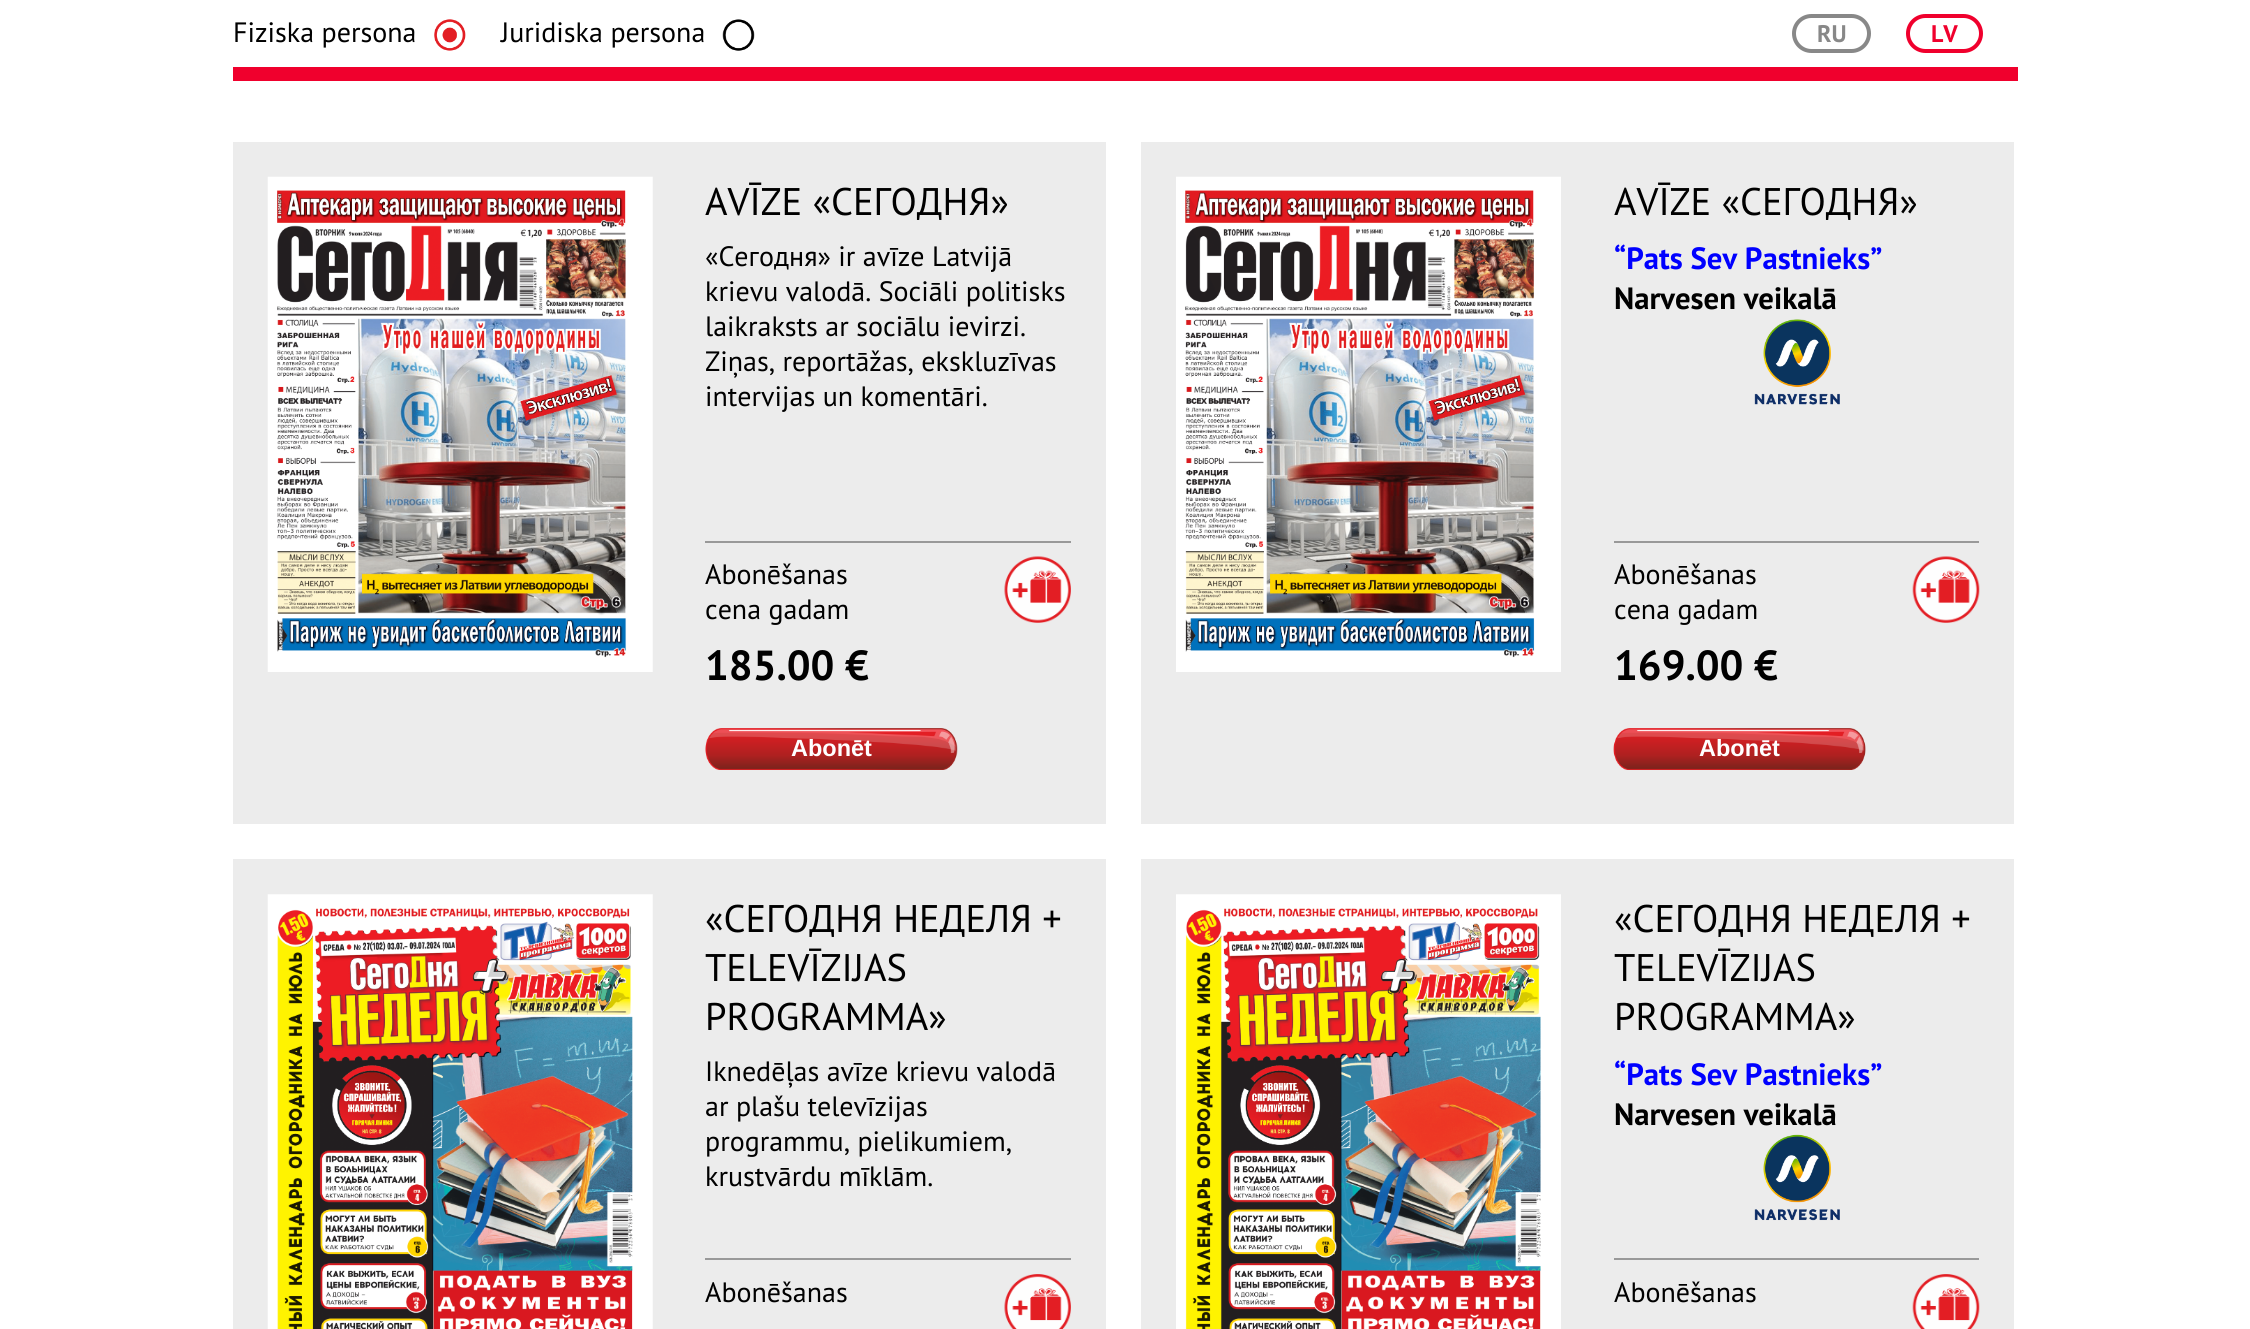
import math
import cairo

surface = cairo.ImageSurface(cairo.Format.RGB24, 2250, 1329)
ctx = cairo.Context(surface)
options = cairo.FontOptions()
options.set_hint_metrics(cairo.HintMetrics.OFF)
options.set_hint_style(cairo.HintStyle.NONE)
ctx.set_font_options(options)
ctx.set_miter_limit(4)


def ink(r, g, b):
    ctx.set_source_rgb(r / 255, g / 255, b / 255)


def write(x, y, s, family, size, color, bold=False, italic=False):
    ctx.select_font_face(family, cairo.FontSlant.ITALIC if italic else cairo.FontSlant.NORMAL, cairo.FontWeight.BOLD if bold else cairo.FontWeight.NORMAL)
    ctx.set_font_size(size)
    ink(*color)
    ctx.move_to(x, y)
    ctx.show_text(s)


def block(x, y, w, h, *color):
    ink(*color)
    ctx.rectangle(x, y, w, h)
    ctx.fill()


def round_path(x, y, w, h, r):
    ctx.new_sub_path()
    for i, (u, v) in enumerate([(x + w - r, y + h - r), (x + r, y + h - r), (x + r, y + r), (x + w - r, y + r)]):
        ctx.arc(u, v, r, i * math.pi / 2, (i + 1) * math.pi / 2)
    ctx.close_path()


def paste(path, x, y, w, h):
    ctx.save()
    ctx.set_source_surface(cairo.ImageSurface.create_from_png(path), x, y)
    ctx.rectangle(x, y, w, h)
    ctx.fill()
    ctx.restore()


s1 = dict(family="PT Sans", size=28, color=(0, 0, 0))
s2 = dict(family="PT Sans", size=24, color=(136, 136, 136), bold=True)
s3 = dict(family="PT Sans", size=24, color=(240, 0, 45), bold=True)
s4 = dict(family="PT Sans", size=38.5, color=(0, 0, 0))
s5 = dict(family="PT Sans", size=42, color=(0, 0, 0), bold=True)
s6 = dict(family="Liberation Sans", size=23.5, color=(255, 255, 255), bold=True)
s7 = dict(family="PT Sans", size=30.75, color=(0, 0, 255), bold=True)
s8 = dict(family="PT Sans", size=30.75, color=(0, 0, 0), bold=True)

ink(255, 255, 255)
ctx.paint()
write(233, 42, "Fiziska persona", **s1)
paste("pic1.png", 434, 19, 32, 32)
write(501, 42, "Juridiska persona", **s1)
paste("pic2.png", 722, 19, 33, 32)
round_path(1794, 16, 75, 35, 17.5)
ink(136, 136, 136)
ctx.set_line_width(4)
ctx.stroke()
write(1817, 42, "RU", **s2)
round_path(1908, 16, 73, 35, 17.5)
ink(240, 0, 45)
ctx.stroke()
write(1931, 42, "LV", **s3)
block(233, 67, 1785, 14, 240, 0, 45)
block(233, 142, 873, 682, 236, 236, 236)
paste("pic3.png", 267, 176, 386, 496)
write(705, 215, "AVĪZE «СЕГОДНЯ»", **s4)
write(705, 266, "«Сегодня» ir avīze Latvijā", **s1)
write(705, 301, "krievu valodā. Sociāli politisks", **s1)
write(705, 336, "laikraksts ar sociālu ievirzi.", **s1)
write(705, 371, "Ziņas, reportāžas, ekskluzīvas", **s1)
write(705, 406, "intervijas un komentāri.", **s1)
block(705, 541, 366, 2, 153, 153, 153)
write(705, 584, "Abonēšanas", **s1)
paste("pic4.png", 1004, 556, 67, 67)
write(705, 619, "cena gadam", **s1)
write(705, 680, "185.00 €", **s5)
paste("pic5.png", 705, 728, 253, 42)
write(791, 756, "Abonēt", **s6)
block(1141, 142, 873, 682, 236, 236, 236)
paste("pic6.png", 1176, 176, 385, 496)
write(1614, 215, "AVĪZE «СЕГОДНЯ»", **s4)
write(1614, 269, "“Pats Sev Pastnieks”", **s7)
write(1614, 309, "Narvesen veikalā", **s8)
paste("pic7.png", 1754, 319, 86, 86)
block(1614, 541, 365, 2, 153, 153, 153)
write(1614, 584, "Abonēšanas", **s1)
paste("pic8.png", 1912, 556, 68, 67)
write(1614, 619, "cena gadam", **s1)
write(1614, 680, "169.00 €", **s5)
paste("pic9.png", 1613, 728, 253, 42)
write(1699, 756, "Abonēt", **s6)
block(233, 859, 873, 470, 236, 236, 236)
paste("pic10.png", 267, 894, 386, 435)
write(705, 932, "«СЕГОДНЯ НЕДЕЛЯ +", **s4)
write(705, 981, "TELEVĪZIJAS", **s4)
write(705, 1030, "PROGRAMMA»", **s4)
write(705, 1081, "Iknedēļas avīze krievu valodā", **s1)
write(705, 1116, "ar plašu televīzijas", **s1)
write(705, 1151, "programmu, pielikumiem,", **s1)
write(705, 1186, "krustvārdu mīklām.", **s1)
block(705, 1258, 366, 2, 153, 153, 153)
write(705, 1302, "Abonēšanas", **s1)
paste("pic11.png", 1004, 1274, 67, 55)
block(1141, 859, 873, 470, 236, 236, 236)
paste("pic12.png", 1176, 894, 385, 435)
write(1614, 932, "«СЕГОДНЯ НЕДЕЛЯ +", **s4)
write(1614, 981, "TELEVĪZIJAS", **s4)
write(1614, 1030, "PROGRAMMA»", **s4)
write(1614, 1085, "“Pats Sev Pastnieks”", **s7)
write(1614, 1125, "Narvesen veikalā", **s8)
paste("pic13.png", 1754, 1134, 86, 87)
block(1614, 1258, 365, 2, 153, 153, 153)
write(1614, 1302, "Abonēšanas", **s1)
paste("pic14.png", 1912, 1274, 68, 55)
surface.write_to_png("screenshot.png")
